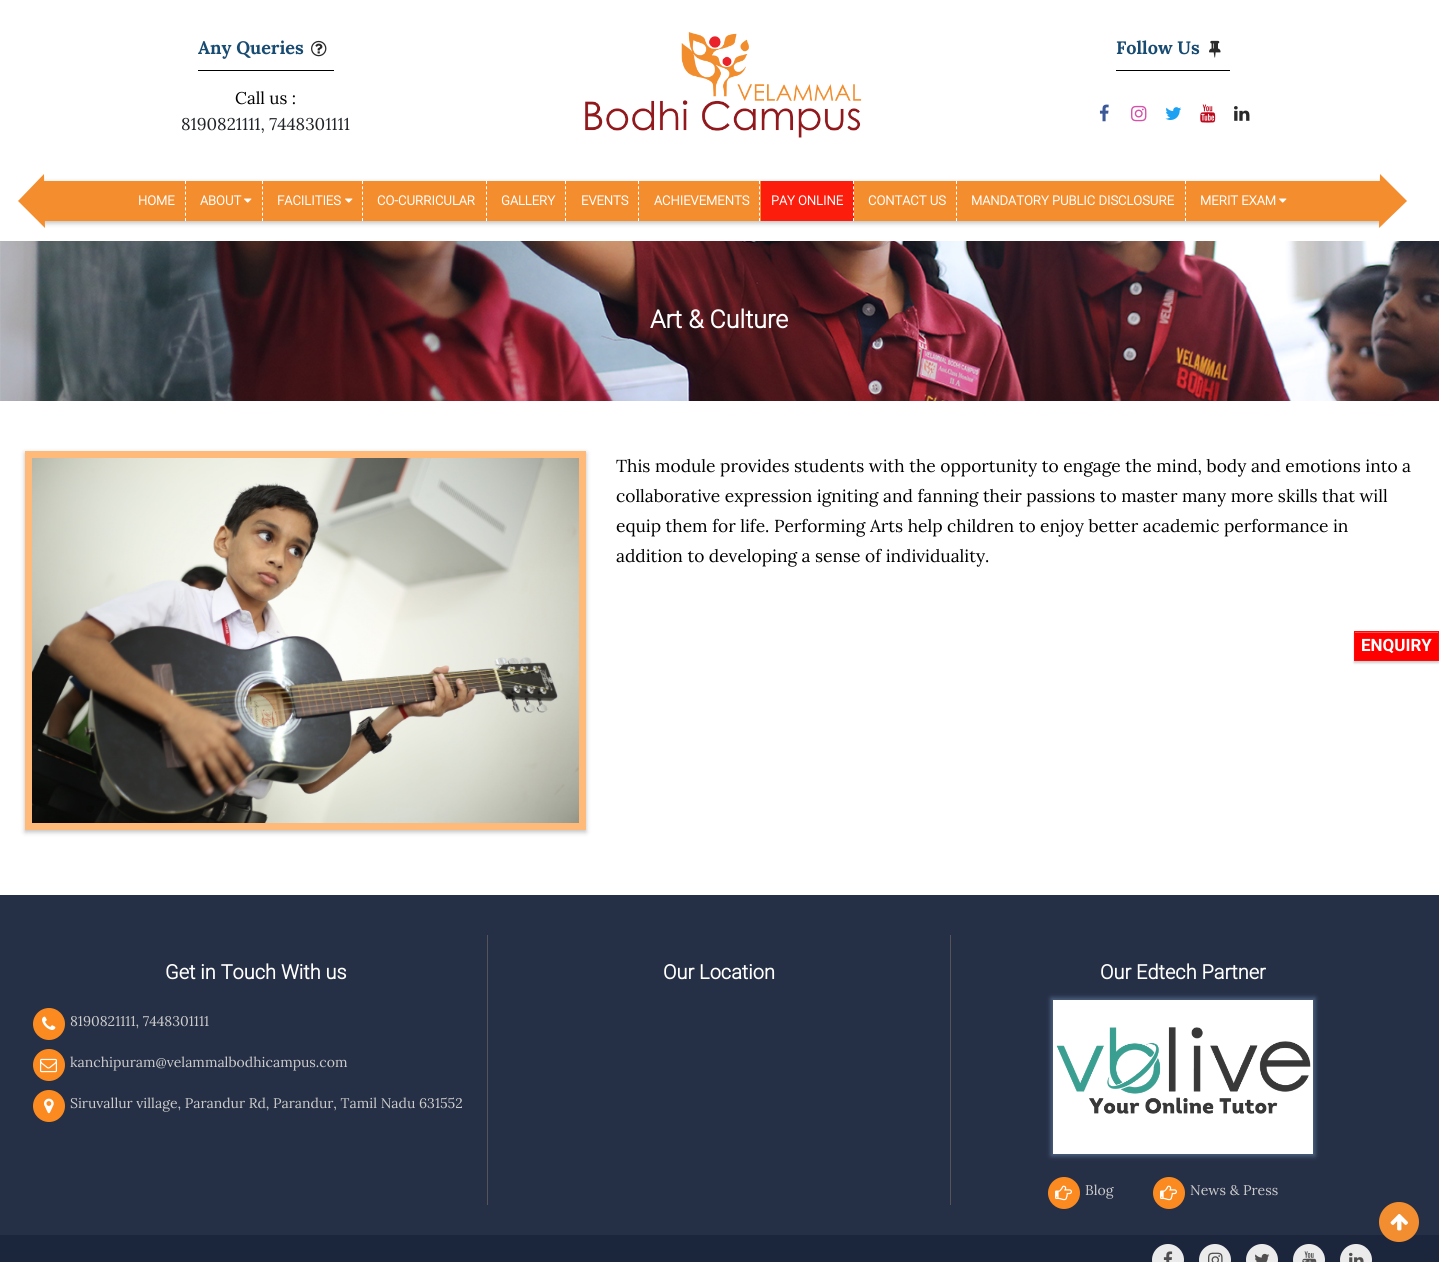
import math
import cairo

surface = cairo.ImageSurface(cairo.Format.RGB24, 1439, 1262)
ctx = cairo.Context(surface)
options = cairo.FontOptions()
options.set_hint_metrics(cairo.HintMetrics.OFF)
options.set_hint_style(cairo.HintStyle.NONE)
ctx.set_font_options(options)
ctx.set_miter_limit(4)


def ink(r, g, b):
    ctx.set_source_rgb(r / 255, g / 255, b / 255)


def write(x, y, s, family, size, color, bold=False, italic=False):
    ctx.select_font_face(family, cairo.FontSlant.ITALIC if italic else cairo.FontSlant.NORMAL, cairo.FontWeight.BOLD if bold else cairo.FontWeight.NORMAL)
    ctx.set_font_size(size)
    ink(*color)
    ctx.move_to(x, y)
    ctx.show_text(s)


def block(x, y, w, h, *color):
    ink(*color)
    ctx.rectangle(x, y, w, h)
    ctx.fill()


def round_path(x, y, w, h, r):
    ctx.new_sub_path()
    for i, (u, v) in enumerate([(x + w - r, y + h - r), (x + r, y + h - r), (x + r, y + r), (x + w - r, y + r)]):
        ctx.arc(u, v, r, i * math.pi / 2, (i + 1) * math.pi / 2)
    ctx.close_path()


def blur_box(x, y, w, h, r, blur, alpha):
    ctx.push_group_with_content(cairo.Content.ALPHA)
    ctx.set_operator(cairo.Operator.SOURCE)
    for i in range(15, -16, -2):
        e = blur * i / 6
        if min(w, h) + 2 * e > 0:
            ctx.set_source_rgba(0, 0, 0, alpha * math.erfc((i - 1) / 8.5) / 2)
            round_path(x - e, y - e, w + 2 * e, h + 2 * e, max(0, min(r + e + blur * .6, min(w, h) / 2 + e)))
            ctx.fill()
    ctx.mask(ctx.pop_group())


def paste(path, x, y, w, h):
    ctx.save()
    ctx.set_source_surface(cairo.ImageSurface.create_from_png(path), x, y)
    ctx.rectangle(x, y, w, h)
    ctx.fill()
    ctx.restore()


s1 = dict(family="Lora", size=18, color=(24, 75, 113), bold=True)
s2 = dict(family="Lora", size=17, color=(0, 0, 0))
s3 = dict(family="Lora", size=17, color=(33, 37, 41))
s4 = dict(family="Roboto", size=13, color=(255, 255, 255), bold=True)
s5 = dict(family="Roboto", size=25, color=(255, 255, 255), bold=True)
s6 = dict(family="Lora", size=17.35, color=(0, 0, 0))
s7 = dict(family="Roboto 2", size=17, color=(255, 255, 255), bold=True)
s8 = dict(family="Roboto", size=20, color=(255, 255, 255), bold=True)
s9 = dict(family="Lora", size=14, color=(204, 204, 204))

ink(255, 255, 255)
ctx.paint()
write(198, 54, "Any Queries", **s1)
paste("pic1.png", 311, 40, 16, 17)
block(198, 70, 136, 1, 0, 0, 0)
write(235, 104, "Call us :", **s2)
write(181, 130, "8190821111, 7448301111", **s3)
paste("pic2.png", 585, 32, 277, 106)
write(1116, 54, "Follow Us", **s1)
paste("pic3.png", 1209, 40, 12, 18)
block(1116, 70, 114, 1, 0, 0, 0)
paste("pic4.png", 1099, 104, 10, 18)
paste("pic5.png", 1131, 105, 16, 17)
paste("pic6.png", 1165, 107, 17, 13)
paste("pic7.png", 1200, 104, 16, 19)
paste("pic8.png", 1234, 106, 16, 15)
ink(0, 0, 0)
blur_box(44, 183, 1337, 40, 0, 2.5, 0.26)
block(44, 181, 1336, 40, 244, 141, 46)
ctx.new_path()
ctx.move_to(45, 228)
ctx.line_to(18, 201)
ctx.line_to(44, 174)
ctx.close_path()
ctx.fill()
ctx.new_path()
ctx.move_to(185.5, 181)
ctx.line_to(185.5, 221)
ink(255, 255, 255)
ctx.set_line_width(1)
ctx.set_dash([3, 2.29])
ctx.stroke()
write(138, 205, "HOME", **s4)
ctx.new_path()
ctx.move_to(262.5, 181)
ctx.line_to(262.5, 221)
ctx.stroke()
write(200, 205, "ABOUT", **s4)
paste("pic9.png", 244, 198, 8, 5)
ctx.new_path()
ctx.move_to(362.5, 181)
ctx.line_to(362.5, 221)
ctx.stroke()
write(277, 205, "FACILITIES", **s4)
paste("pic9.png", 345, 198, 8, 5)
ctx.new_path()
ctx.move_to(486.5, 181)
ctx.line_to(486.5, 221)
ctx.stroke()
write(377, 205, "CO-CURRICULAR", **s4)
ctx.new_path()
ctx.move_to(565.5, 181)
ctx.line_to(565.5, 221)
ctx.stroke()
write(501, 205, "GALLERY", **s4)
ctx.new_path()
ctx.move_to(638.5, 181)
ctx.line_to(638.5, 221)
ctx.stroke()
write(581, 205, "EVENTS", **s4)
ctx.new_path()
ctx.move_to(759.5, 181)
ctx.line_to(759.5, 221)
ctx.stroke()
write(654, 205, "ACHIEVEMENTS", **s4)
block(761, 181, 93, 40, 253, 29, 12)
ctx.new_path()
ctx.move_to(853.5, 181)
ctx.line_to(853.5, 221)
ink(255, 255, 255)
ctx.stroke()
write(771, 205, "PAY ONLINE", **s4)
ctx.new_path()
ctx.move_to(956.5, 181)
ctx.line_to(956.5, 221)
ctx.stroke()
write(868, 205, "CONTACT US", **s4)
ctx.new_path()
ctx.move_to(1185.5, 181)
ctx.line_to(1185.5, 221)
ctx.stroke()
write(971, 205, "MANDATORY PUBLIC DISCLOSURE", **s4)
write(1200, 205, "MERIT EXAM", **s4)
paste("pic9.png", 1279, 198, 8, 5)
ink(244, 141, 46)
ctx.new_path()
ctx.move_to(1407, 201)
ctx.line_to(1379, 228)
ctx.line_to(1380, 174)
ctx.close_path()
ctx.fill()
paste("pic10.png", 0, 241, 1439, 160)
write(650, 328, "Art & Culture", **s5)
ink(0, 0, 0)
blur_box(25, 453, 561, 379, 0, 2.5, 0.26)
ctx.rectangle(28.5, 454.5, 554, 372)
ink(255, 186, 122)
ctx.set_line_width(7)
ctx.set_dash([])
ctx.stroke()
paste("pic11.png", 32, 458, 547, 365)
write(616, 472, "This module provides students with the opportunity to engage the mind, body and emotions into a", **s6)
write(616, 502, "collaborative expression igniting and fanning their passions to master many more skills that will", **s6)
write(616, 532, "equip them for life. Performing Arts help children to enjoy better academic performance in", **s6)
write(616, 562, "addition to developing a sense of individuality.", **s6)
block(0, 895, 1439, 340, 37, 47, 69)
ink(0, 0, 0)
blur_box(1354, 633, 85, 30, 0, 1, 0.2)
block(1355, 633, 83, 27, 255, 0, 0)
block(1355, 632, 83, 1, 255, 77, 77)
ctx.rectangle(1354.5, 631.5, 84, 29)
ink(255, 9, 9)
ctx.set_line_width(1)
ctx.stroke()
write(1361, 651, "ENQUIRY", **s7)
block(487, 935, 1, 270, 85, 85, 85)
write(165, 979, "Get in Touch With us", **s8)
ink(251, 138, 32)
ctx.new_path()
ctx.arc(49, 1024, 16, 0, 2 * math.pi)
ctx.fill()
paste("pic12.png", 42, 1016, 14, 14)
write(70, 1026, "8190821111, 7448301111", **s9)
ink(251, 138, 32)
ctx.new_path()
ctx.arc(49, 1065, 16, 0, 2 * math.pi)
ctx.fill()
paste("pic13.png", 40, 1058, 17, 15)
write(70, 1067, "kanchipuram@velammalbodhicampus.com", **s9)
ink(251, 138, 32)
ctx.new_path()
ctx.arc(49, 1106, 16, 0, 2 * math.pi)
ctx.fill()
paste("pic14.png", 44, 1098, 10, 16)
write(70, 1108, "Siruvallur village, Parandur Rd, Parandur, Tamil Nadu 631552", **s9)
block(950, 935, 1, 270, 85, 85, 85)
write(663, 979, "Our Location", **s8)
write(1100, 979, "Our Edtech Partner", **s8)
ink(81, 103, 136)
blur_box(1051, 998, 264, 158, 0, 2.5, 1)
block(1053, 1000, 260, 154, 255, 255, 255)
paste("pic15.png", 1056, 1027, 255, 87)
ink(251, 138, 32)
ctx.arc(1064, 1193, 16, 0, 2 * math.pi)
ctx.fill()
paste("pic16.png", 1055, 1185, 17, 16)
write(1085, 1195, "Blog", **s9)
ink(251, 138, 32)
ctx.new_path()
ctx.arc(1169, 1193, 16, 0, 2 * math.pi)
ctx.fill()
paste("pic16.png", 1160, 1185, 17, 16)
write(1190, 1195, "News & Press", **s9)
block(0, 1235, 1439, 27, 27, 37, 60)
ink(242, 142, 48)
ctx.new_path()
ctx.arc(1399, 1222, 20, 0, 2 * math.pi)
ctx.fill()
paste("pic17.png", 1390, 1214, 18, 17)
ink(235, 235, 235)
ctx.arc(1168, 1260, 16, 0, 2 * math.pi)
ctx.fill()
paste("pic18.png", 1163, 1251, 10, 11)
ctx.arc(1215, 1260, 16, 0, 2 * math.pi)
ctx.fill()
paste("pic19.png", 1208, 1252, 15, 10)
ctx.arc(1262, 1260, 16, 0, 2 * math.pi)
ctx.fill()
paste("pic20.png", 1255, 1253, 15, 9)
ctx.arc(1309, 1260, 16, 0, 2 * math.pi)
ctx.fill()
paste("pic21.png", 1302, 1251, 15, 11)
ctx.arc(1356, 1260, 16, 0, 2 * math.pi)
ctx.fill()
paste("pic22.png", 1349, 1252, 15, 10)
surface.write_to_png("screenshot.png")
